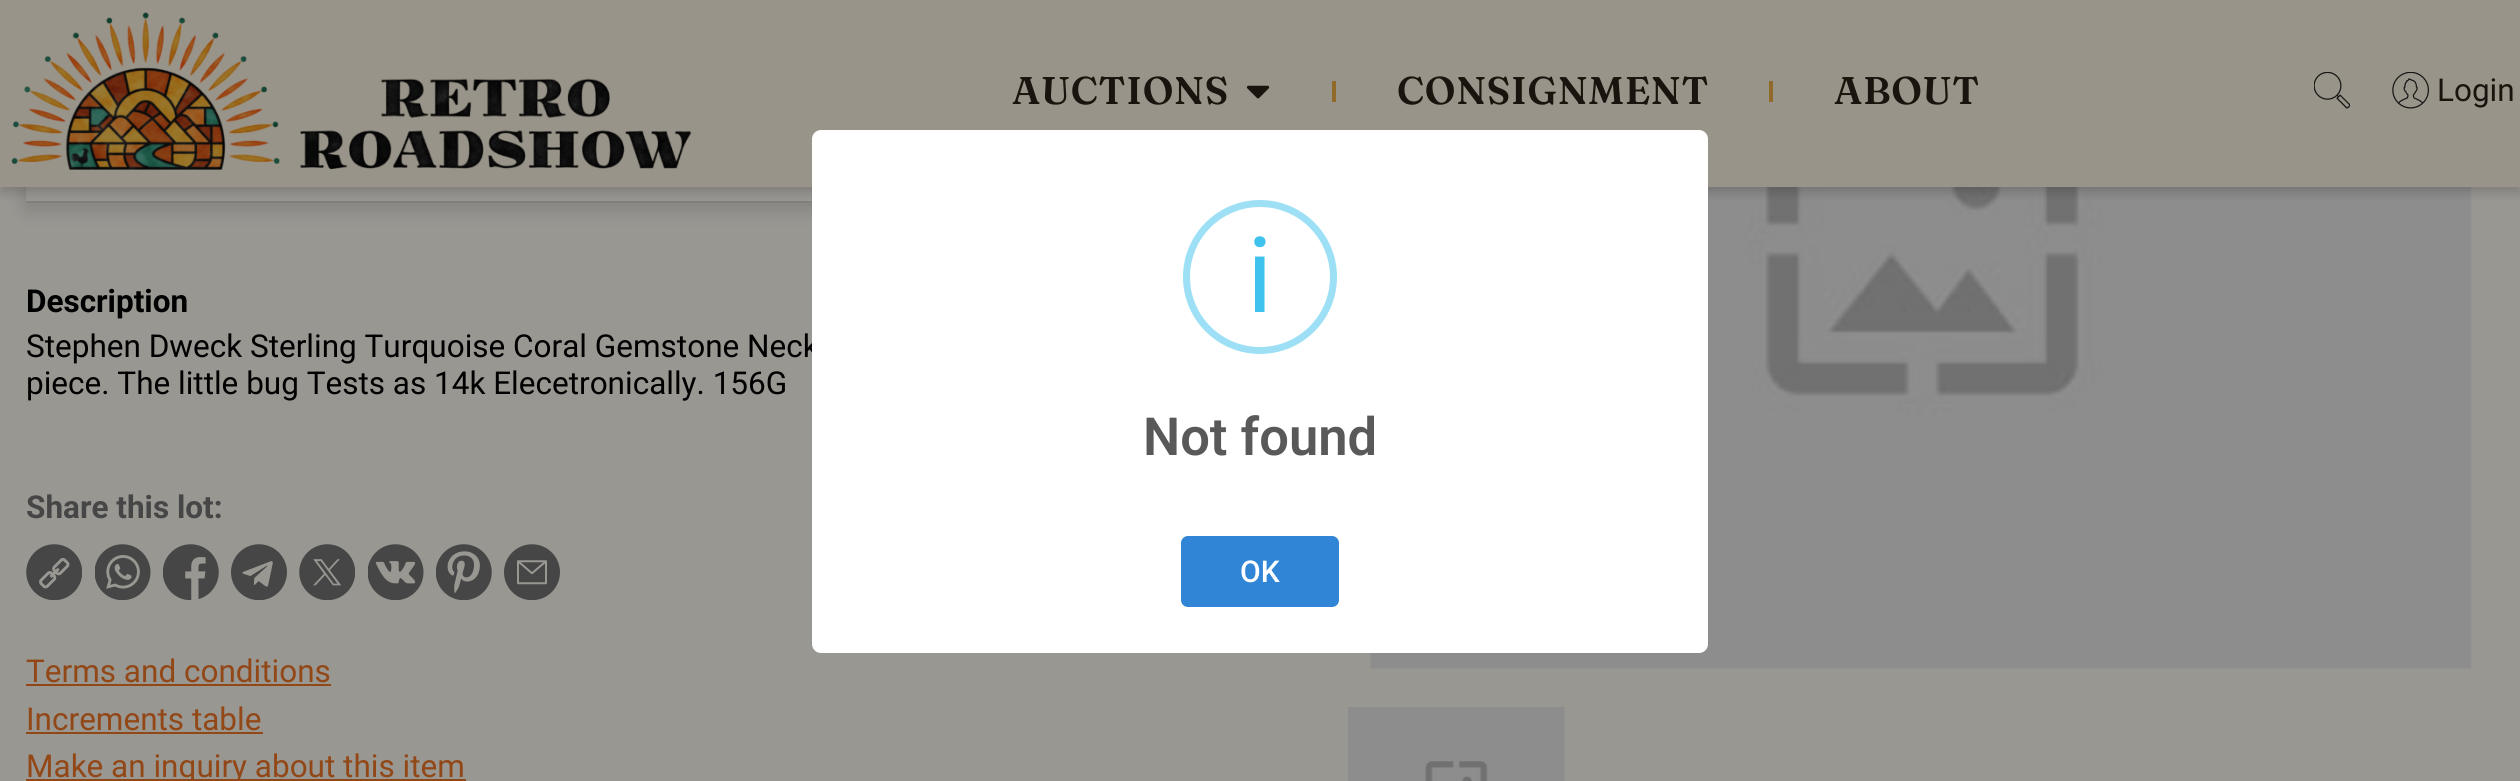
import math
import cairo

surface = cairo.ImageSurface(cairo.Format.RGB24, 2520, 781)
ctx = cairo.Context(surface)
options = cairo.FontOptions()
options.set_hint_metrics(cairo.HintMetrics.OFF)
options.set_hint_style(cairo.HintStyle.NONE)
ctx.set_font_options(options)
ctx.set_miter_limit(4)


def ink(r, g, b):
    ctx.set_source_rgb(r / 255, g / 255, b / 255)


def write(x, y, s, family, size, color, bold=False, italic=False):
    ctx.select_font_face(family, cairo.FontSlant.ITALIC if italic else cairo.FontSlant.NORMAL, cairo.FontWeight.BOLD if bold else cairo.FontWeight.NORMAL)
    ctx.set_font_size(size)
    ink(*color)
    ctx.move_to(x, y)
    ctx.show_text(s)


def write_spaced(x, y, s, letter, word):
    ctx.move_to(x, y)
    for ch in s:
        ctx.show_text(ch)
        ctx.rel_move_to(letter + word * (ch == ' '), 0)


def block(x, y, w, h, *color):
    ink(*color)
    ctx.rectangle(x, y, w, h)
    ctx.fill()


def round_path(x, y, w, h, r):
    ctx.new_sub_path()
    for i, (u, v) in enumerate([(x + w - r, y + h - r), (x + r, y + h - r), (x + r, y + r), (x + w - r, y + r)]):
        ctx.arc(u, v, r, i * math.pi / 2, (i + 1) * math.pi / 2)
    ctx.close_path()


def blur_box(x, y, w, h, r, blur, alpha):
    ctx.push_group_with_content(cairo.Content.ALPHA)
    ctx.set_operator(cairo.Operator.SOURCE)
    for i in range(15, -16, -2):
        e = blur * i / 6
        if min(w, h) + 2 * e > 0:
            ctx.set_source_rgba(0, 0, 0, alpha * math.erfc((i - 1) / 8.5) / 2)
            round_path(x - e, y - e, w + 2 * e, h + 2 * e, max(0, min(r + e + blur * .6, min(w, h) / 2 + e)))
            ctx.fill()
    ctx.mask(ctx.pop_group())


def paste(path, x, y, w, h):
    ctx.save()
    ctx.set_source_surface(cairo.ImageSurface.create_from_png(path), x, y)
    ctx.rectangle(x, y, w, h)
    ctx.fill()
    ctx.restore()


s1 = dict(family="Roboto", size=31.5, color=(26, 20, 14))
s2 = dict(family="Roboto", size=31.5, color=(0, 0, 0), bold=True)
s3 = dict(family="Roboto", size=31.5, color=(0, 0, 0))
s4 = dict(family="Roboto", size=31.5, color=(70, 70, 70), bold=True)
s5 = dict(family="Roboto", size=31.5, color=(146, 71, 22))
s6 = dict(family="Roboto", size=105, color=(63, 195, 238))
s7 = dict(family="Roboto SemiBold", size=52.5, color=(89, 89, 89))
s8 = dict(family="Roboto Medium", size=30, color=(255, 255, 255))

ink(153, 151, 146)
ctx.paint()
ctx.save()
ctx.set_fill_rule(cairo.FillRule.EVEN_ODD)
ctx.new_path()
ctx.move_to(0, 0)
ctx.line_to(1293, 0)
ctx.line_to(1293, 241)
ctx.line_to(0, 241)
ctx.close_path()
ctx.move_to(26, 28)
ctx.line_to(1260, 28)
ctx.line_to(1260, 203)
ctx.line_to(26, 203)
ctx.close_path()
ctx.clip()
ink(0, 0, 0)
blur_box(26, 33, 1234, 175, 0, 10.5, 0.16)
ctx.restore()
ctx.set_source_rgba(0, 0, 0, 0.16)
ctx.rectangle(26, 201, 786, 2)
ctx.fill()
paste("pic13.png", 1370, 187, 1102, 482)
ink(0, 0, 0)
blur_box(0, 5, 2520, 188, 0, 5, 0.16)
block(0, 0, 2520, 187, 153, 148, 137)
paste("pic1.png", 11, 12, 681, 158)
ctx.select_font_face("Fraunces SemiBold")
ctx.set_font_size(38.5)
ink(26, 20, 14)
write_spaced(1012, 104, "AUCTIONS", 0.75, 0)
paste("pic2.png", 1246, 85, 24, 14)
block(1332, 81, 4, 21, 145, 106, 42)
ink(26, 20, 14)
write_spaced(1397, 104, "CONSIGNMENT", 0.75, 0)
block(1769, 81, 4, 21, 145, 106, 42)
ink(26, 20, 14)
write_spaced(1834, 104, "ABOUT", 0.75, 0)
paste("pic3.png", 2314, 72, 36, 37)
paste("pic4.png", 2392, 72, 37, 37)
write(2437, 101, "Login", **s1)
write(26, 312, "Description", **s2)
write(26, 357, "Stephen Dweck Sterling Turquoise Coral Gemstone Neck", **s3)
write(26, 394, "piece. The little bug Tests as 14k Elecetronically. 156G", **s3)
write(26, 518, "Share this lot:", **s4)
paste("pic5.png", 26, 544, 56, 56)
paste("pic6.png", 95, 544, 56, 56)
paste("pic7.png", 163, 544, 56, 56)
paste("pic8.png", 231, 544, 56, 56)
paste("pic9.png", 299, 544, 56, 56)
paste("pic10.png", 368, 544, 56, 56)
paste("pic11.png", 436, 544, 56, 56)
paste("pic12.png", 504, 544, 56, 56)
write(26, 682, "Terms and conditions", **s5)
block(26, 684, 305, 2, 146, 71, 22)
write(26, 730, "Increments table", **s5)
block(26, 732, 237, 2, 146, 71, 22)
block(26, 779, 440, 2, 146, 71, 22)
write(26, 777, "Make an inquiry about this item", **s5)
paste("pic14.png", 1348, 707, 217, 74)
ink(255, 255, 255)
round_path(812, 130, 896, 523, 9)
ctx.fill()
ctx.arc(1260, 277, 73.5, 0, 2 * math.pi)
ink(157, 224, 246)
ctx.set_line_width(7)
ctx.stroke()
write(1247, 312, "i", **s6)
write(1143, 455, "Not found", **s7)
ink(48, 133, 214)
round_path(1181, 536, 158, 71, 7)
ctx.fill()
write(1240, 582, "OK", **s8)
surface.write_to_png("screenshot.png")
